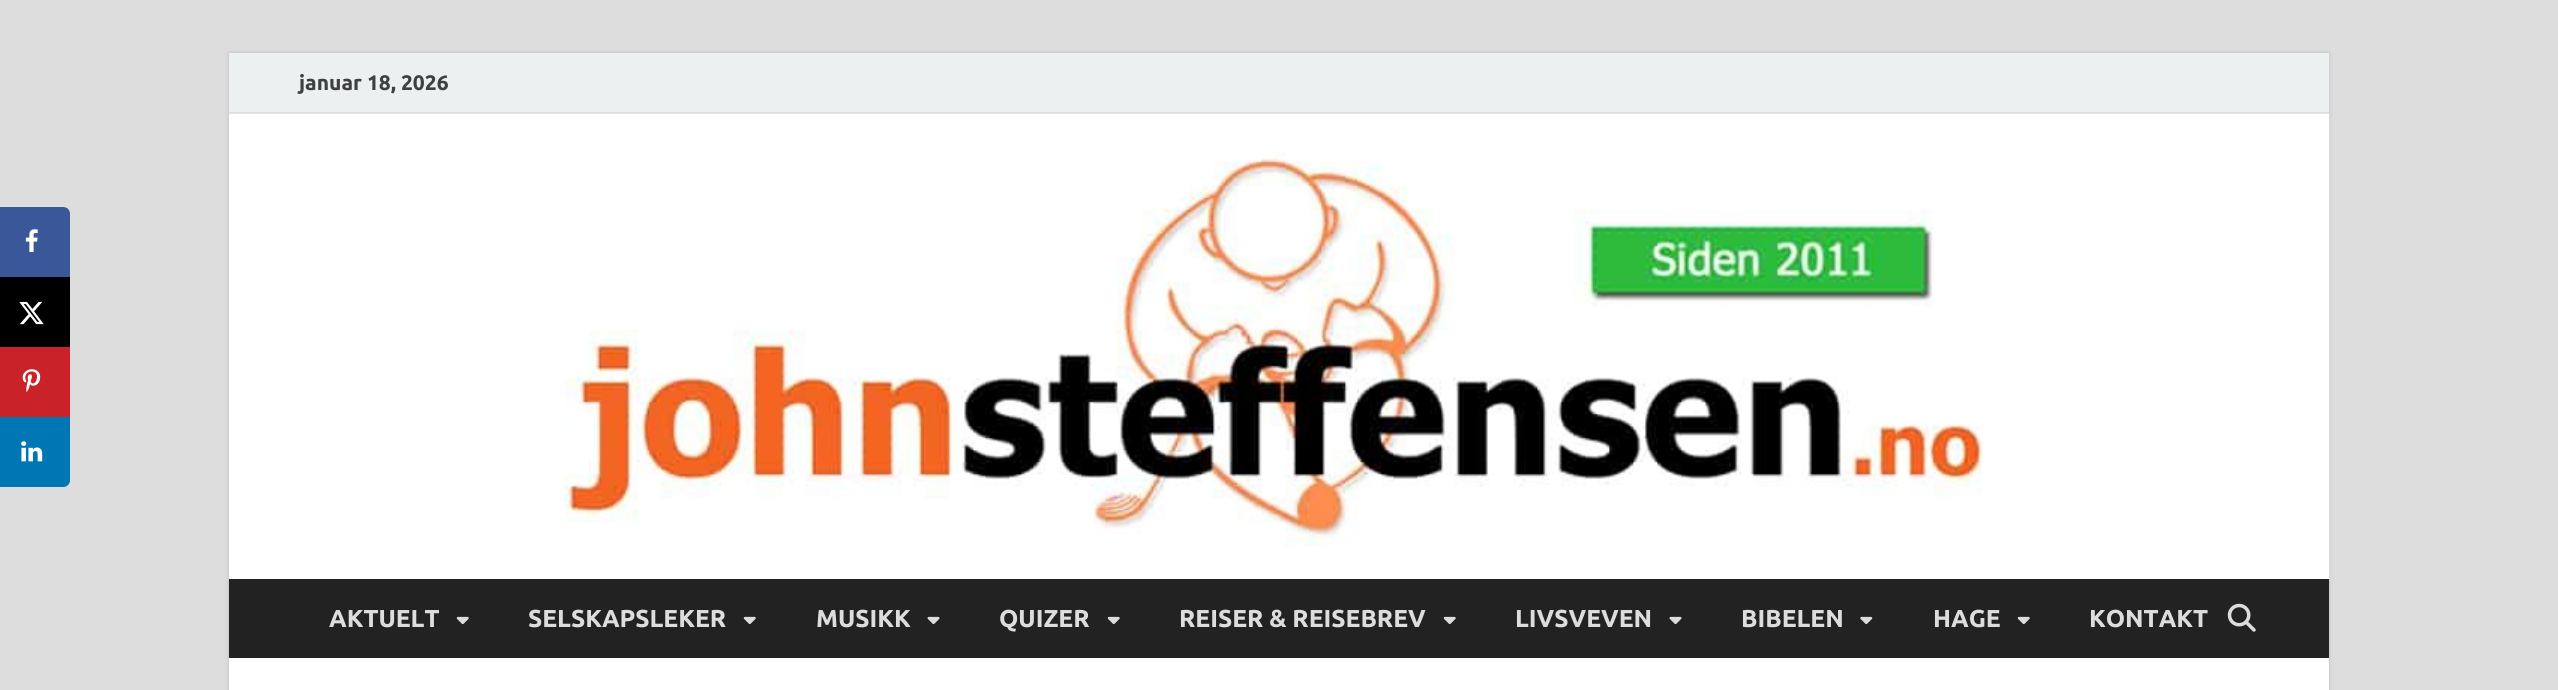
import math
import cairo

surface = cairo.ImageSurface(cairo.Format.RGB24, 2558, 690)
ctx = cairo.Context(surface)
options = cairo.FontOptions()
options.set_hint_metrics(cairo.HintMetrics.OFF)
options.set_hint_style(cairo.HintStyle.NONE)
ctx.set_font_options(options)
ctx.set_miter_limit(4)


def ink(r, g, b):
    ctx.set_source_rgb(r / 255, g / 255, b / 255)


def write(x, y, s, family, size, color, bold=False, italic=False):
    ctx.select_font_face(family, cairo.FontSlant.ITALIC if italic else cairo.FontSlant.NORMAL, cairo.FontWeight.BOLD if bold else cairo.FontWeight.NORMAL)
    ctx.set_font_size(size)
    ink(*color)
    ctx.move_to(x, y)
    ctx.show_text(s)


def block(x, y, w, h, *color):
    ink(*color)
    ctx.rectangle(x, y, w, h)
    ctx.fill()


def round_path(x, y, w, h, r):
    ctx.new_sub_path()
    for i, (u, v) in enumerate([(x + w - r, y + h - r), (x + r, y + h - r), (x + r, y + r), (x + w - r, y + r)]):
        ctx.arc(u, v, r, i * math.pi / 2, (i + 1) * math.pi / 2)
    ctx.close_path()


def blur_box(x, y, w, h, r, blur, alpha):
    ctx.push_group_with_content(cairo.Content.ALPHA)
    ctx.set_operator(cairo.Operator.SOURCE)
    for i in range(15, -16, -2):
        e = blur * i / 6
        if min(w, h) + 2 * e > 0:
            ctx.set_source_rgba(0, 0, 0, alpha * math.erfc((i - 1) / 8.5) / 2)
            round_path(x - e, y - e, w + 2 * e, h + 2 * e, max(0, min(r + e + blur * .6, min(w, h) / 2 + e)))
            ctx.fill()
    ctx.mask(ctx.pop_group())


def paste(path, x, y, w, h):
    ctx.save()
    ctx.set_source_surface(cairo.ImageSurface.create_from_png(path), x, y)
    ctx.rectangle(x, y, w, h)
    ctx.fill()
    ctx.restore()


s1 = dict(family="Ubuntu", size=21, color=(64, 64, 64), bold=True)
s2 = dict(family="Ubuntu", size=24.5, color=(221, 221, 221), bold=True)

ink(221, 221, 221)
ctx.paint()
ink(58, 87, 154)
ctx.new_path()
ctx.move_to(2, 209)
ctx.line_to(63, 209)
ctx.curve_to(66, 209, 68, 211, 68, 214)
ctx.line_to(68, 275)
ctx.line_to(2, 275)
ctx.close_path()
ctx.fill_preserve()
ctx.set_line_width(4)
ctx.stroke()
paste("pic1.png", 25, 229, 13, 23)
block(0, 277, 70, 70, 0, 0, 0)
paste("pic2.png", 19, 301, 25, 24)
block(0, 347, 70, 70, 201, 34, 40)
paste("pic3.png", 22, 369, 19, 23)
ink(0, 119, 181)
ctx.new_path()
ctx.move_to(2, 419)
ctx.line_to(68, 419)
ctx.line_to(68, 480)
ctx.curve_to(68, 483, 66, 485, 63, 485)
ctx.line_to(2, 485)
ctx.close_path()
ctx.fill_preserve()
ctx.stroke()
paste("pic4.png", 21, 441, 22, 21)
ink(187, 187, 187)
blur_box(229, 53, 2100, 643, 0, 2, 1)
block(229, 114, 2100, 576, 255, 255, 255)
block(229, 53, 2100, 59, 236, 240, 241)
block(229, 112, 2100, 2, 221, 221, 221)
write(299, 90, "januar 18, 2026", **s1)
paste("pic5.png", 229, 113, 2101, 466)
block(229, 579, 2100, 79, 34, 34, 34)
write(329, 627, "AKTUELT", **s2)
paste("pic6.png", 456, 616, 13, 9)
write(528, 627, "SELSKAPSLEKER", **s2)
paste("pic6.png", 743, 616, 13, 9)
write(816, 627, "MUSIKK", **s2)
paste("pic7.png", 927, 616, 13, 9)
write(999, 627, "QUIZER", **s2)
paste("pic6.png", 1107, 616, 13, 9)
write(1179, 627, "REISER & REISEBREV", **s2)
paste("pic6.png", 1443, 616, 13, 9)
write(1515, 627, "LIVSVEVEN", **s2)
paste("pic7.png", 1669, 616, 13, 9)
write(1741, 627, "BIBELEN", **s2)
paste("pic8.png", 1860, 616, 13, 9)
write(1933, 627, "HAGE", **s2)
paste("pic6.png", 2017, 616, 13, 9)
write(2089, 627, "KONTAKT", **s2)
paste("pic9.png", 2227, 603, 29, 29)
surface.write_to_png("screenshot.png")
